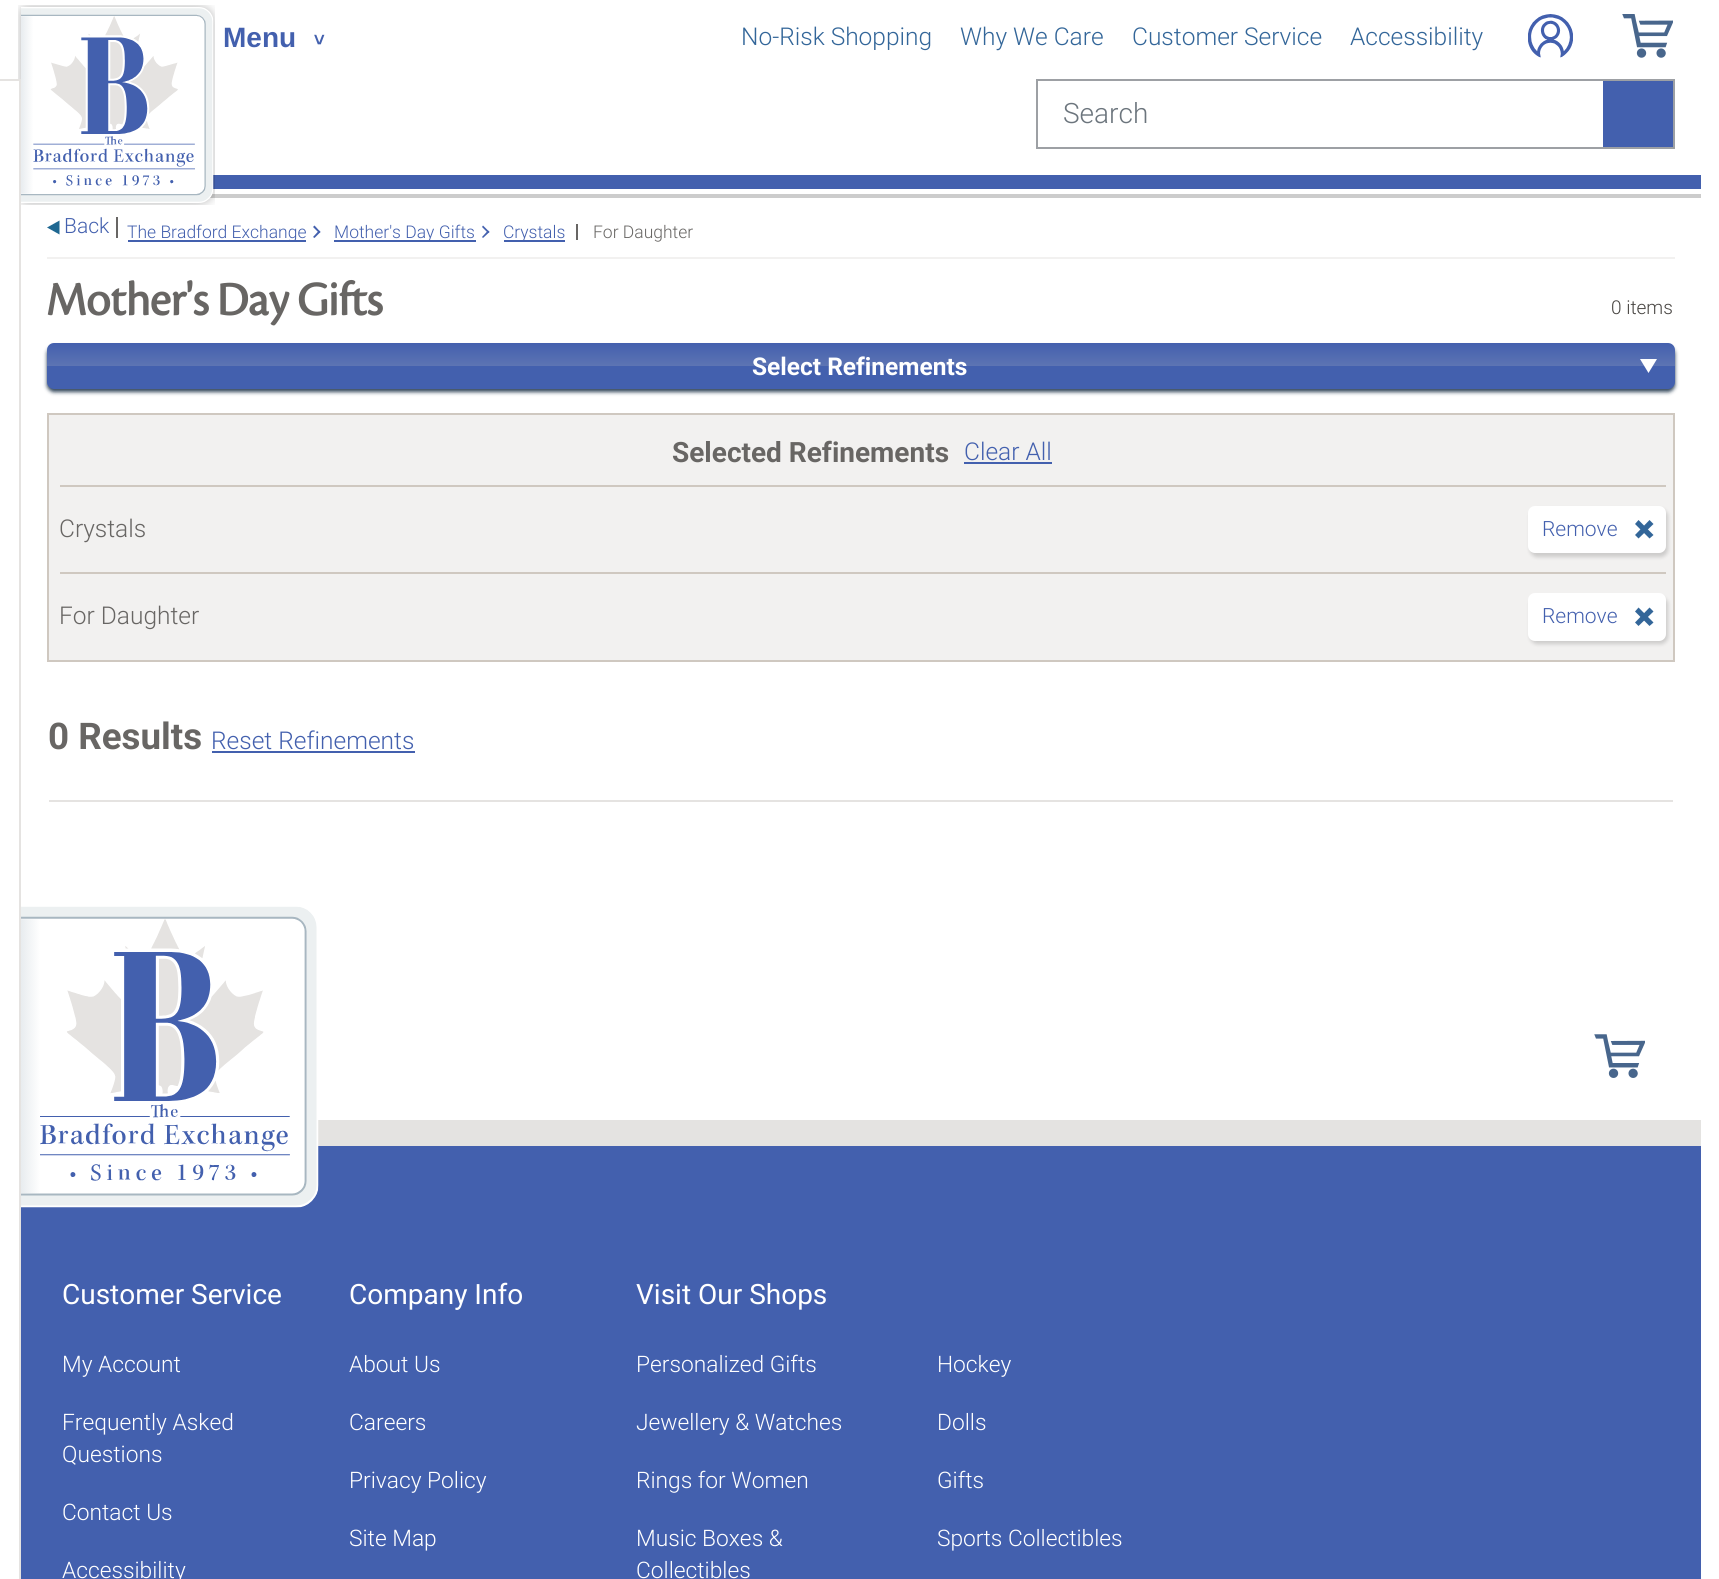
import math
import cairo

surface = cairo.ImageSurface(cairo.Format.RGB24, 1719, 1579)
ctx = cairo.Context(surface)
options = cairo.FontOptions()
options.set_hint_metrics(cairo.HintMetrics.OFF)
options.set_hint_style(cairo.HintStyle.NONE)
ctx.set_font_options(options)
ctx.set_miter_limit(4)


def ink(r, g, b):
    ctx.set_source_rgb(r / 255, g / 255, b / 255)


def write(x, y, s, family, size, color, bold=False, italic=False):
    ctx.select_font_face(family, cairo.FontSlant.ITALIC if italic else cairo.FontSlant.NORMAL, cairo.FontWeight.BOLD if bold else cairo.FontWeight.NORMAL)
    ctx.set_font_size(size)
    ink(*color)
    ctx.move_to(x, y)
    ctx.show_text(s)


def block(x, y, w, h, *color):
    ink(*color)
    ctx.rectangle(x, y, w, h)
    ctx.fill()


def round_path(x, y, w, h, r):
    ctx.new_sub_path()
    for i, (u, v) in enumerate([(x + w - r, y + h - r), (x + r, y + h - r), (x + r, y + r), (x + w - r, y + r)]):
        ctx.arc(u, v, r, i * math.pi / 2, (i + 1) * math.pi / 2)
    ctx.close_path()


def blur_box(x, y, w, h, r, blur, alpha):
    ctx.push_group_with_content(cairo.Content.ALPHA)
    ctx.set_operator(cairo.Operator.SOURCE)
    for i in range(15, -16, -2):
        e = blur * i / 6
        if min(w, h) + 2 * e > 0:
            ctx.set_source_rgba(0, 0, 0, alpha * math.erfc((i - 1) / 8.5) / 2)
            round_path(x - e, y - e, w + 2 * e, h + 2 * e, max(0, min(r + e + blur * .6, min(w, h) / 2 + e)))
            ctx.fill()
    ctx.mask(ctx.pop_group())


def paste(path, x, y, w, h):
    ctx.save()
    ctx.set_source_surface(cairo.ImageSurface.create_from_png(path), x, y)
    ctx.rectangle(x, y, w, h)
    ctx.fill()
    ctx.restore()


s1 = dict(family="Liberation Sans", size=28, color=(67, 96, 174), bold=True)
s2 = dict(family="Liberation Sans", size=19, color=(67, 96, 174), bold=True)
s3 = dict(family="Roboto Light", size=24.5, color=(51, 102, 153))
s4 = dict(family="Roboto Light", size=28, color=(108, 117, 125))
s5 = dict(family="Roboto Light", size=21, color=(67, 96, 174))
s6 = dict(family="Roboto Light", size=17.5, color=(67, 96, 174))
s7 = dict(family="Roboto Light", size=17.5, color=(104, 102, 100))
s8 = dict(family="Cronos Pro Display", size=49, color=(104, 102, 100), bold=True)
s9 = dict(family="Roboto Light", size=19, color=(71, 68, 65))
s10 = dict(family="Roboto", size=24.5, color=(255, 255, 255), bold=True)
s11 = dict(family="Roboto", size=28, color=(104, 102, 100), bold=True)
s12 = dict(family="Roboto Light", size=24.5, color=(67, 96, 174))
s13 = dict(family="Roboto Light", size=24.5, color=(104, 102, 100))
s14 = dict(family="Roboto", size=36.75, color=(104, 102, 100), bold=True)
s15 = dict(family="Roboto", size=28, color=(255, 255, 255))
s16 = dict(family="Roboto Light", size=22.75, color=(255, 255, 255))

ink(255, 255, 255)
ctx.paint()
block(212, 175, 1489, 14, 67, 96, 174)
block(210, 194, 1491, 4, 204, 204, 204)
paste("pic1.png", 18, 5, 197, 200)
write(223, 47, "Menu", **s1)
ctx.save()
ctx.translate(313, 34)
ctx.rotate(90 * math.pi / 180)
write(0, 0, ">", **s2)
ctx.restore()
write(741, 45, "No-Risk Shopping", **s3)
write(960, 45, "Why We Care", **s3)
write(1132, 45, "Customer Service", **s3)
write(1350, 45, "Accessibility", **s3)
paste("pic2.png", 1528, 14, 45, 44)
paste("pic3.png", 1622, 14, 51, 44)
block(18, 81, 1, 124, 255, 255, 255)
ctx.rectangle(-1, 80, 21, 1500)
ink(229, 227, 225)
ctx.stroke()
ctx.rectangle(1037, 80, 637, 68)
ink(157, 160, 164)
ctx.stroke()
write(1063, 123, "Search", **s4)
block(1603, 81, 70, 66, 67, 96, 174)
block(47, 257, 1628, 2, 242, 241, 240)
ink(30, 103, 145)
ctx.new_path()
ctx.move_to(59.5, 220.5)
ctx.line_to(59.5, 234.5)
ctx.line_to(47, 227.5)
ctx.close_path()
ctx.fill()
write(64, 233, "Back", **s5)
block(116, 217, 2, 21, 104, 102, 100)
block(128, 240, 178, 2, 67, 96, 174)
write(127, 238, "The Bradford Exchange", **s6)
ctx.new_path()
ctx.move_to(314.5, 225.5)
ctx.line_to(320.5, 232)
ctx.line_to(319, 233)
ctx.line_to(313, 227)
ctx.close_path()
ctx.fill()
ctx.new_path()
ctx.move_to(319, 230.5)
ctx.line_to(320.5, 232)
ctx.line_to(314.5, 238)
ctx.line_to(313, 237)
ctx.close_path()
ctx.fill()
block(334, 240, 142, 2, 67, 96, 174)
write(334, 238, "Mother's Day Gifts", **s6)
ctx.new_path()
ctx.move_to(483, 225.5)
ctx.line_to(489.5, 232)
ctx.line_to(488, 233)
ctx.line_to(482, 227)
ctx.close_path()
ctx.fill()
ctx.new_path()
ctx.move_to(488, 230.5)
ctx.line_to(489.5, 232)
ctx.line_to(483, 238)
ctx.line_to(482, 237)
ctx.close_path()
ctx.fill()
block(504, 240, 61, 2, 67, 96, 174)
write(503, 238, "Crystals", **s6)
block(576, 224, 2, 16, 104, 102, 100)
write(593, 238, "For Daughter", **s7)
write(46, 315, "Mother's Day Gifts", **s8)
write(1611, 314, "0 items", **s9)
ink(50, 70, 90)
blur_box(47, 347, 1628, 45, 7, 2, 1)
gradient = cairo.LinearGradient(861, 343, 861, 389)
gradient.add_color_stop_rgba(0, 0.263, 0.376, 0.682, 1)
gradient.add_color_stop_rgba(0.5, 0.365, 0.455, 0.702, 1)
gradient.add_color_stop_rgba(0.51, 0.263, 0.376, 0.682, 1)
gradient.add_color_stop_rgba(1, 0.263, 0.376, 0.682, 1)
ctx.set_source(gradient)
round_path(47, 343, 1628, 46, 7)
ctx.fill()
write(752, 375, "Select Refinements", **s10)
ctx.new_path()
ctx.move_to(1640, 359)
ctx.line_to(1657, 359)
ctx.line_to(1648.5, 373)
ctx.close_path()
ctx.fill()
ink(242, 241, 240)
ctx.rectangle(48, 414, 1626, 247)
ctx.fill_preserve()
ink(207, 200, 192)
ctx.stroke()
write(672, 462, "Selected Refinements", **s11)
write(964, 460, "Clear All", **s12)
block(964, 462, 88, 2, 67, 96, 174)
block(60, 485, 1606, 2, 207, 200, 192)
write(59, 537, "Crystals", **s13)
ink(0, 0, 0)
blur_box(1530, 509, 138, 48, 7, 2, 0.16)
ink(255, 255, 255)
round_path(1528, 506, 138, 47, 7)
ctx.fill()
ink(51, 102, 153)
ctx.new_path()
ctx.move_to(1638.5, 520)
ctx.line_to(1653.5, 535)
ctx.line_to(1649.5, 538.5)
ctx.line_to(1635, 524)
ctx.close_path()
ctx.fill()
write(1542, 536, "Remove", **s5)
ink(51, 102, 153)
ctx.new_path()
ctx.move_to(1653.5, 524)
ctx.line_to(1638.5, 538.5)
ctx.line_to(1635, 535)
ctx.line_to(1649.5, 520)
ctx.close_path()
ctx.fill()
block(60, 572, 1606, 2, 207, 200, 192)
write(59, 624, "For Daughter", **s13)
ink(0, 0, 0)
blur_box(1530, 597, 138, 47, 7, 2, 0.16)
ink(255, 255, 255)
round_path(1528, 593, 138, 48, 7)
ctx.fill()
ink(51, 102, 153)
ctx.new_path()
ctx.move_to(1638.5, 607.5)
ctx.line_to(1653.5, 622.5)
ctx.line_to(1649.5, 626)
ctx.line_to(1635, 611.5)
ctx.close_path()
ctx.fill()
write(1542, 623, "Remove", **s5)
ink(51, 102, 153)
ctx.new_path()
ctx.move_to(1653.5, 611.5)
ctx.line_to(1638.5, 626)
ctx.line_to(1635, 622.5)
ctx.line_to(1649.5, 607.5)
ctx.close_path()
ctx.fill()
block(49, 800, 1624, 2, 229, 227, 225)
write(48, 749, "0 Results", **s14)
write(211, 749, "Reset Refinements", **s12)
block(212, 751, 203, 2, 67, 96, 174)
block(21, 1146, 1680, 433, 67, 96, 174)
block(318, 1120, 1383, 26, 228, 227, 225)
paste("pic4.png", 21, 906, 298, 302)
paste("pic5.png", 1594, 1034, 51, 44)
write(62, 1304, "Customer Service", **s15)
write(62, 1372, "My Account", **s16)
write(62, 1430, "Frequently Asked", **s16)
write(62, 1462, "Questions", **s16)
write(62, 1520, "Contact Us", **s16)
write(62, 1578, "Accessibility", **s16)
write(349, 1304, "Company Info", **s15)
write(349, 1372, "About Us", **s16)
write(349, 1430, "Careers", **s16)
write(349, 1488, "Privacy Policy", **s16)
write(349, 1546, "Site Map", **s16)
write(636, 1304, "Visit Our Shops", **s15)
write(636, 1372, "Personalized Gifts", **s16)
write(937, 1372, "Hockey", **s16)
write(636, 1430, "Jewellery & Watches", **s16)
write(937, 1430, "Dolls", **s16)
write(636, 1488, "Rings for Women", **s16)
write(937, 1488, "Gifts", **s16)
write(636, 1546, "Music Boxes &", **s16)
write(636, 1578, "Collectibles", **s16)
write(937, 1546, "Sports Collectibles", **s16)
surface.write_to_png("screenshot.png")
